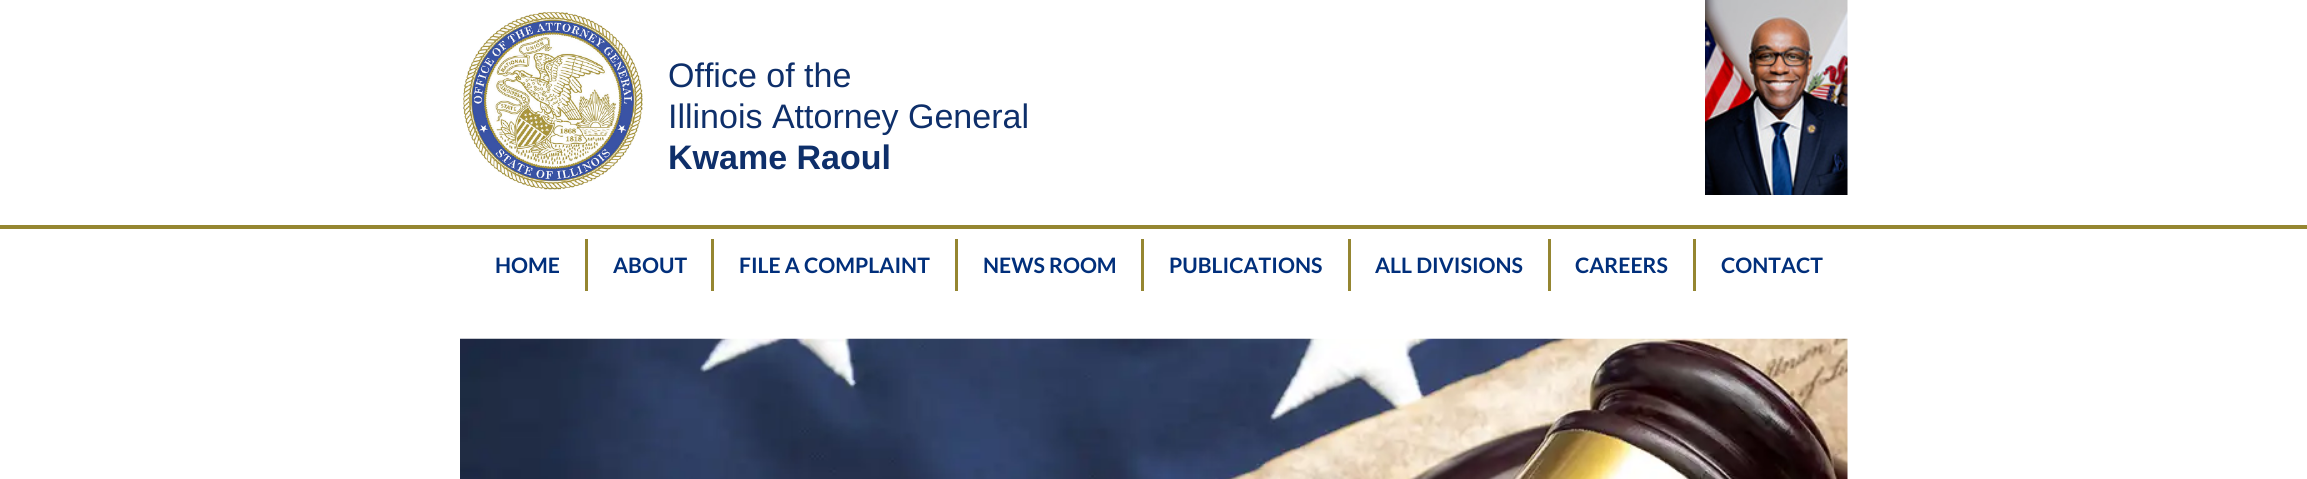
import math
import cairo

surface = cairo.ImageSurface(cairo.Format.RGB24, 2307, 479)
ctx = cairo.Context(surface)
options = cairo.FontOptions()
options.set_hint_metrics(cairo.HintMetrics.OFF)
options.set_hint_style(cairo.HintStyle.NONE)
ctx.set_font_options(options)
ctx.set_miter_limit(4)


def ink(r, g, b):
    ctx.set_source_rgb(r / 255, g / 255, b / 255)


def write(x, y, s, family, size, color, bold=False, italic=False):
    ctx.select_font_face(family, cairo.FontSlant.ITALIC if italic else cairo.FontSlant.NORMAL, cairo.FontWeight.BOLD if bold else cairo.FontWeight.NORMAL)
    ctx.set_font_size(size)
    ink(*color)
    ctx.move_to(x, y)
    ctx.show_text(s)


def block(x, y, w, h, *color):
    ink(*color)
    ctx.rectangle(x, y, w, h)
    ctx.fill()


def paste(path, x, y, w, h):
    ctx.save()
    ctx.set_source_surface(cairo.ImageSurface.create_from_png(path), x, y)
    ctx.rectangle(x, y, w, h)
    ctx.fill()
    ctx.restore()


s1 = dict(family="Liberation Sans", size=34, color=(14, 47, 106))
s2 = dict(family="Liberation Sans", size=34, color=(14, 47, 106), bold=True)
s3 = dict(family="Lato", size=21.25, color=(1, 47, 123), bold=True)

ink(255, 255, 255)
ctx.paint()
paste("pic1.png", 463, 11, 180, 179)
write(668, 87, "Office of the", **s1)
write(668, 128, "Illinois Attorney General", **s1)
write(668, 169, "Kwame Raoul", **s2)
paste("pic2.png", 1705, 0, 143, 195)
block(0, 225, 2307, 4, 149, 134, 49)
block(585, 239, 3, 52, 149, 134, 49)
write(495, 273, "HOME", **s3)
block(711, 239, 3, 52, 149, 134, 49)
write(613, 273, "ABOUT", **s3)
block(955, 239, 3, 52, 149, 134, 49)
write(739, 273, "FILE A COMPLAINT", **s3)
block(1141, 239, 3, 52, 149, 134, 49)
write(983, 273, "NEWS ROOM", **s3)
block(1348, 239, 3, 52, 149, 134, 49)
write(1169, 273, "PUBLICATIONS", **s3)
block(1548, 239, 3, 52, 149, 134, 49)
write(1375, 273, "ALL DIVISIONS", **s3)
block(1693, 239, 3, 52, 149, 134, 49)
write(1575, 273, "CAREERS", **s3)
write(1721, 273, "CONTACT", **s3)
paste("pic3.png", 460, 338, 1388, 141)
surface.write_to_png("screenshot.png")
